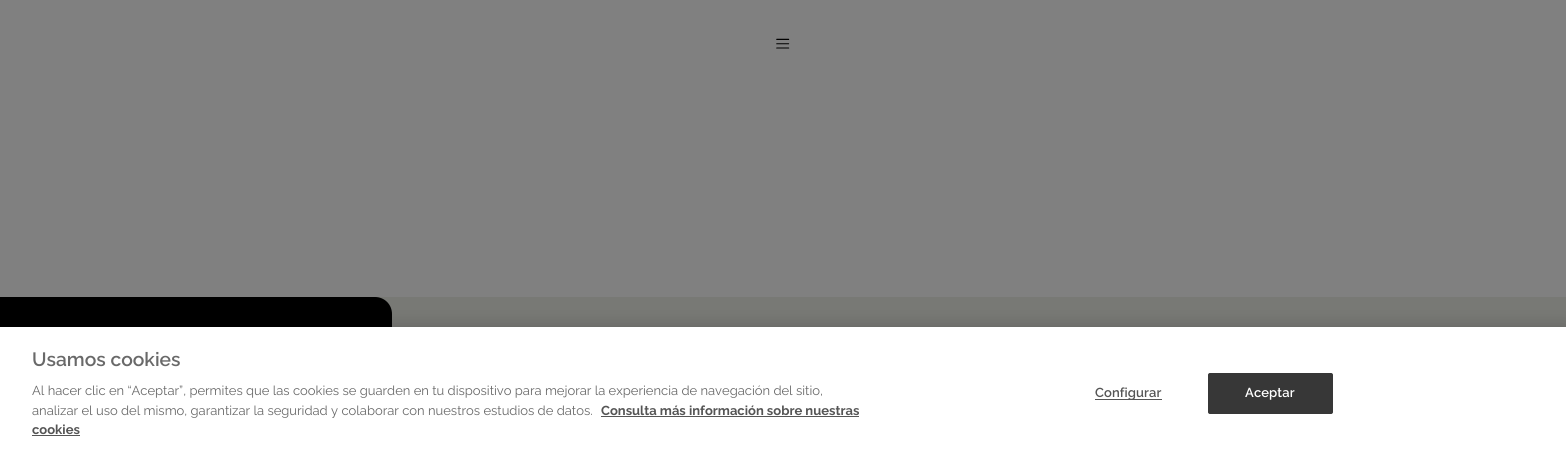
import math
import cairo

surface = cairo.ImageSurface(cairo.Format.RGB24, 1566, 463)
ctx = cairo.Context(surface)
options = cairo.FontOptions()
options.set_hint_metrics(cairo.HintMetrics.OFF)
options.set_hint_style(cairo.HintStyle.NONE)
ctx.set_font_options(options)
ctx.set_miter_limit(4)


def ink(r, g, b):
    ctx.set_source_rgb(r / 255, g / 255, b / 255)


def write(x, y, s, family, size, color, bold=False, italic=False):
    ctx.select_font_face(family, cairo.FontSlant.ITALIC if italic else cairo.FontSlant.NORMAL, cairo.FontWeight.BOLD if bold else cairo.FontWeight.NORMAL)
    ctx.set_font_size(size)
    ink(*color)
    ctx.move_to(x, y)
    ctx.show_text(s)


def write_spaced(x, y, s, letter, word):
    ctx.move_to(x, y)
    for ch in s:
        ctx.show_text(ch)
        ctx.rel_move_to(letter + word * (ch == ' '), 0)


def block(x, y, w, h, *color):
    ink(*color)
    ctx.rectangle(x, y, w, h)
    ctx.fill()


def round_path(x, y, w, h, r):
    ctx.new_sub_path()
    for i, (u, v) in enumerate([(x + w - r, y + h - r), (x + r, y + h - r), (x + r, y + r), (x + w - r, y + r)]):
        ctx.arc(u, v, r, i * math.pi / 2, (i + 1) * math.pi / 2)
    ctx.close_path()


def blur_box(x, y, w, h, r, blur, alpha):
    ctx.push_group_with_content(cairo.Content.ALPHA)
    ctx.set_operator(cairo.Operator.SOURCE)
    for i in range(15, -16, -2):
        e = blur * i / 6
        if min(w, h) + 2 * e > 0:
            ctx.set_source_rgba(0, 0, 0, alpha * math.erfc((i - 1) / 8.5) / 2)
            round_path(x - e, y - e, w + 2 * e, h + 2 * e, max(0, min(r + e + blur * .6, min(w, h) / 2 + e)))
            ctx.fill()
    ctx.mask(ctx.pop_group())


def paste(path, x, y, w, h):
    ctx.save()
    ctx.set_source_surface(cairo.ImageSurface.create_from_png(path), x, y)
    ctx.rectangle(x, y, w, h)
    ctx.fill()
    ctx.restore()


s1 = dict(family="Raleway SemiBold", size=19.25, color=(105, 105, 105))
s2 = dict(family="Raleway", size=13, color=(105, 105, 105))
s3 = dict(family="Raleway", size=13, color=(85, 85, 85), bold=True)

ink(128, 128, 128)
ctx.paint()
paste("pic1.png", 776, 38, 14, 11)
block(375, 297, 1191, 30, 120, 121, 117)
ink(0, 0, 0)
ctx.new_path()
ctx.move_to(0, 297)
ctx.line_to(375, 297)
ctx.curve_to(384.5, 297, 392, 304.5, 392, 314)
ctx.line_to(392, 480)
ctx.line_to(0, 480)
ctx.close_path()
ctx.fill()
ink(0, 0, 0)
blur_box(0, 327, 1566, 136, 0, 9, 0.2)
block(0, 327, 1566, 136, 255, 255, 255)
write(32, 366, "Usamos cookies", **s1)
write(32, 395, "Al hacer clic en “Aceptar”, permites que las cookies se guarden en tu dispositivo para mejorar la experiencia de navegación del sitio,", **s2)
write(32, 415, "analizar el uso del mismo, garantizar la seguridad y colaborar con nuestros estudios de datos.", **s2)
write(601, 415, "Consulta más información sobre nuestras", **s3)
block(601, 416, 258, 1, 85, 85, 85)
write(32, 434, "cookies", **s3)
block(32, 435, 48, 1, 85, 85, 85)
block(1095, 399, 67, 1, 85, 85, 85)
ctx.select_font_face("Raleway SemiBold")
write_spaced(1095, 397, "Configurar", 0.1, 0)
ink(55, 55, 55)
round_path(1208.5, 373.5, 124, 40, 1.5)
ctx.fill_preserve()
ctx.set_line_width(1)
ctx.stroke()
ink(255, 255, 255)
write_spaced(1245, 397, "Aceptar", 0.1, 0)
surface.write_to_png("screenshot.png")
